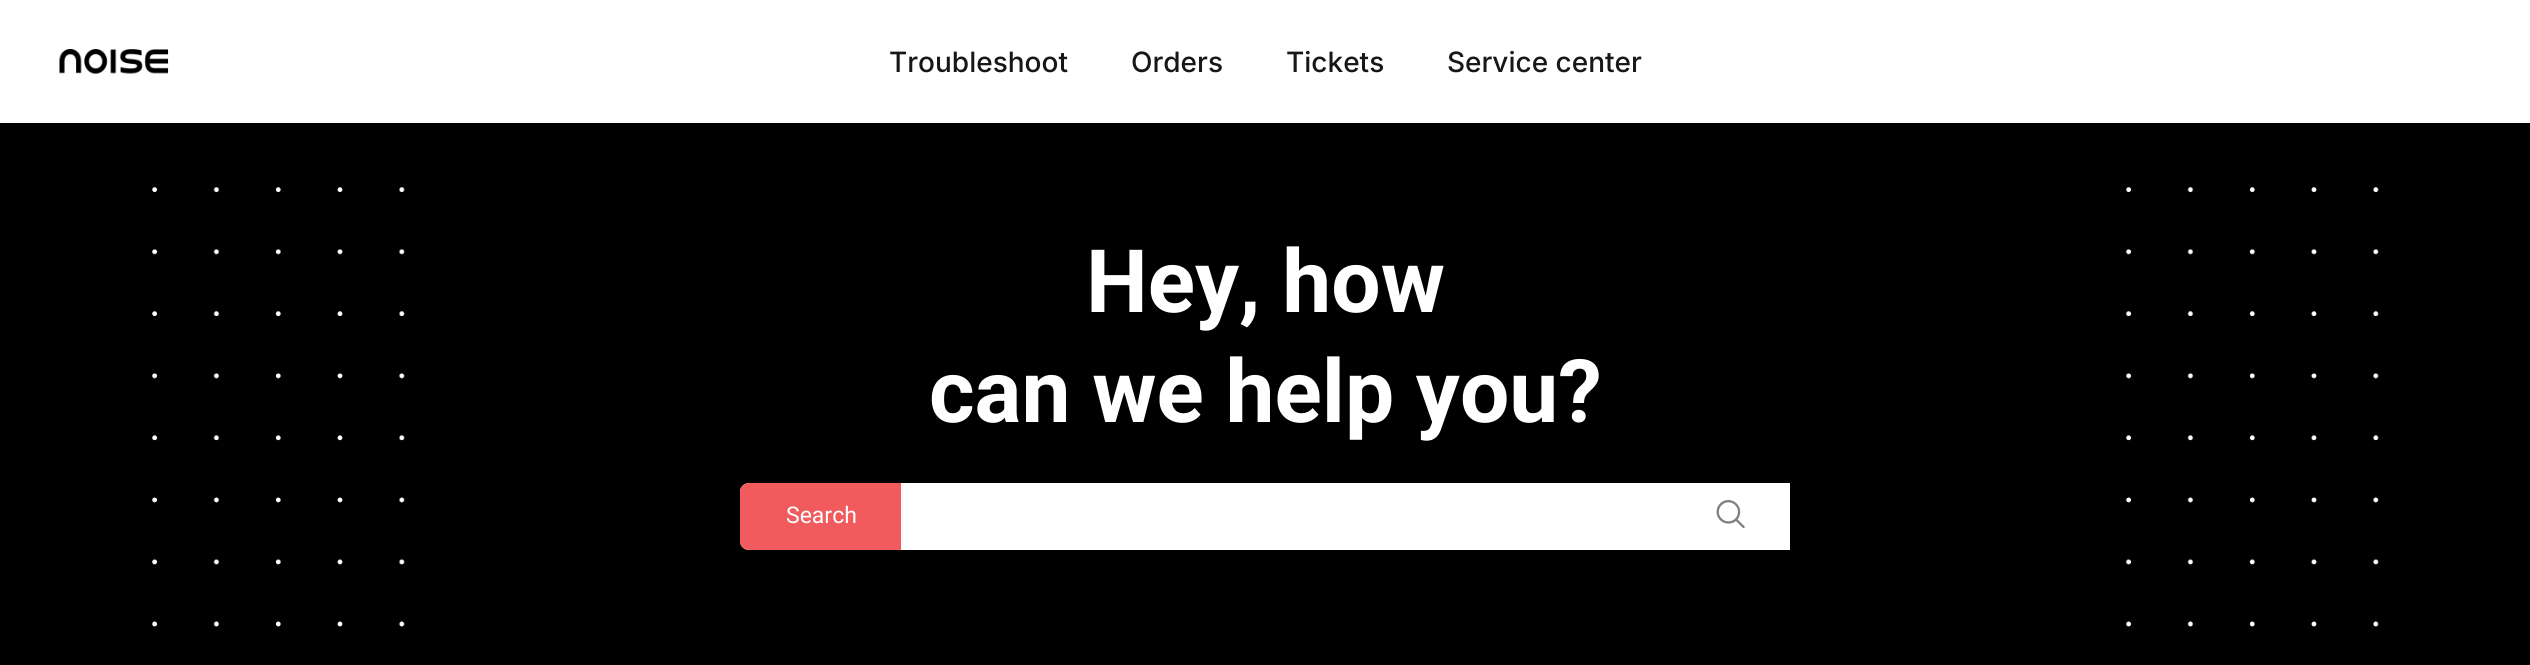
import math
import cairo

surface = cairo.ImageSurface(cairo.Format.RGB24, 2530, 665)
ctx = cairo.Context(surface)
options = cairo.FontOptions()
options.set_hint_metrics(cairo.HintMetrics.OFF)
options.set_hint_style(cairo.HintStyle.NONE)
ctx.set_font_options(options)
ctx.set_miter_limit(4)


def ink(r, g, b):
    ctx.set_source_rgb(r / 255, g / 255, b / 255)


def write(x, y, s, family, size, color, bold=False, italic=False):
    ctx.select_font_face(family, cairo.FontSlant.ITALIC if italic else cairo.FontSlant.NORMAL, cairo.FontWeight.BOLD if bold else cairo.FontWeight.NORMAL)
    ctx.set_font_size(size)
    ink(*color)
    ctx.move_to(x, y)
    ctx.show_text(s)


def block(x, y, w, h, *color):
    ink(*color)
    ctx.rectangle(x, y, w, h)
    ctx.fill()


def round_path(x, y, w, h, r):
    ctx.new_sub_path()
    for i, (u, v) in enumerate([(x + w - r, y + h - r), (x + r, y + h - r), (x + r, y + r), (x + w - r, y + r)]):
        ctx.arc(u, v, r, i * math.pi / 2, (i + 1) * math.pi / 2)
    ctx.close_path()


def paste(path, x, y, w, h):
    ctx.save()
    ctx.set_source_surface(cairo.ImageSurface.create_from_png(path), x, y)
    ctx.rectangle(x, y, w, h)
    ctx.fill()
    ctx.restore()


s1 = dict(family="Inter Medium", size=28, color=(23, 23, 23))
s2 = dict(family="Roboto", size=87.5, color=(255, 255, 255), bold=True)
s3 = dict(family="Roboto", size=23, color=(255, 255, 255))

ink(0, 0, 0)
ctx.paint()
block(0, 0, 2530, 123, 255, 255, 255)
paste("pic1.png", 59, 49, 110, 25)
write(889, 72, "Troubleshoot", **s1)
write(1131, 72, "Orders", **s1)
write(1286, 72, "Tickets", **s1)
write(1447, 72, "Service center", **s1)
paste("pic2.png", 152, 187, 253, 440)
write(1086, 312, "Hey, how", **s2)
write(929, 422, "can we help you?", **s2)
round_path(740, 483, 1050, 67, 9)
ctx.fill()
ink(241, 91, 93)
ctx.new_path()
ctx.move_to(749, 483)
ctx.line_to(901, 483)
ctx.line_to(901, 550)
ctx.line_to(749, 550)
ctx.curve_to(744, 550, 740, 546, 740, 541)
ctx.line_to(740, 492)
ctx.curve_to(740, 487, 744, 483, 749, 483)
ctx.close_path()
ctx.fill()
write(786, 523, "Search", **s3)
block(1781, 483, 9, 67, 255, 255, 255)
paste("pic3.png", 1716, 500, 29, 29)
paste("pic4.png", 2126, 187, 253, 440)
surface.write_to_png("screenshot.png")
